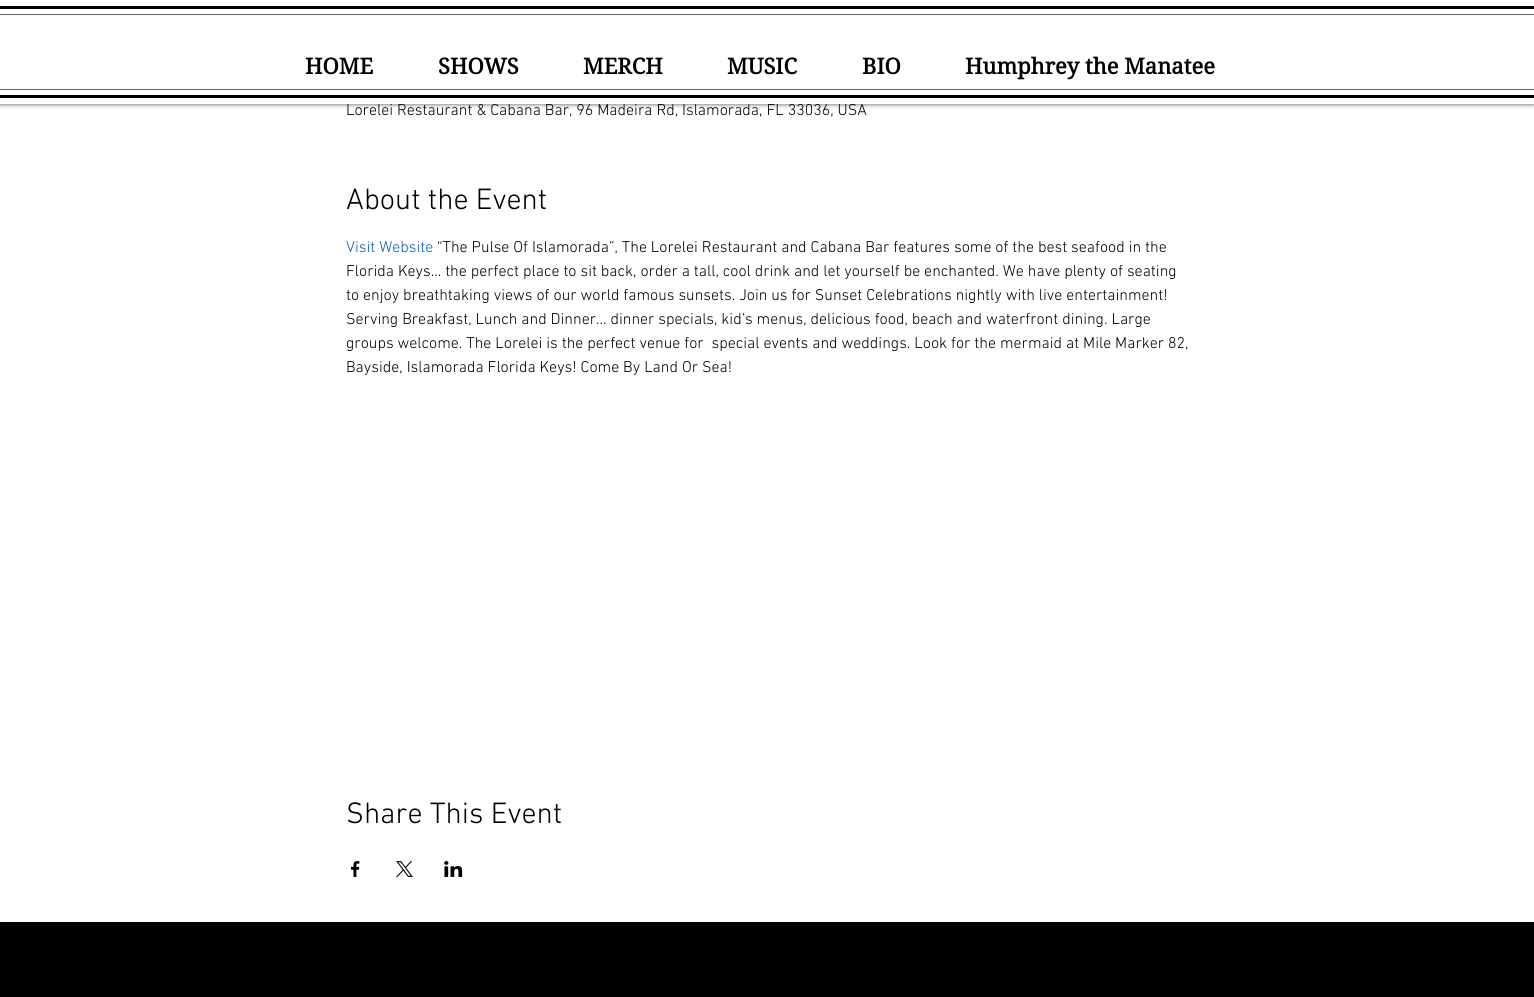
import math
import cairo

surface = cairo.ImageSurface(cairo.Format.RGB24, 1534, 997)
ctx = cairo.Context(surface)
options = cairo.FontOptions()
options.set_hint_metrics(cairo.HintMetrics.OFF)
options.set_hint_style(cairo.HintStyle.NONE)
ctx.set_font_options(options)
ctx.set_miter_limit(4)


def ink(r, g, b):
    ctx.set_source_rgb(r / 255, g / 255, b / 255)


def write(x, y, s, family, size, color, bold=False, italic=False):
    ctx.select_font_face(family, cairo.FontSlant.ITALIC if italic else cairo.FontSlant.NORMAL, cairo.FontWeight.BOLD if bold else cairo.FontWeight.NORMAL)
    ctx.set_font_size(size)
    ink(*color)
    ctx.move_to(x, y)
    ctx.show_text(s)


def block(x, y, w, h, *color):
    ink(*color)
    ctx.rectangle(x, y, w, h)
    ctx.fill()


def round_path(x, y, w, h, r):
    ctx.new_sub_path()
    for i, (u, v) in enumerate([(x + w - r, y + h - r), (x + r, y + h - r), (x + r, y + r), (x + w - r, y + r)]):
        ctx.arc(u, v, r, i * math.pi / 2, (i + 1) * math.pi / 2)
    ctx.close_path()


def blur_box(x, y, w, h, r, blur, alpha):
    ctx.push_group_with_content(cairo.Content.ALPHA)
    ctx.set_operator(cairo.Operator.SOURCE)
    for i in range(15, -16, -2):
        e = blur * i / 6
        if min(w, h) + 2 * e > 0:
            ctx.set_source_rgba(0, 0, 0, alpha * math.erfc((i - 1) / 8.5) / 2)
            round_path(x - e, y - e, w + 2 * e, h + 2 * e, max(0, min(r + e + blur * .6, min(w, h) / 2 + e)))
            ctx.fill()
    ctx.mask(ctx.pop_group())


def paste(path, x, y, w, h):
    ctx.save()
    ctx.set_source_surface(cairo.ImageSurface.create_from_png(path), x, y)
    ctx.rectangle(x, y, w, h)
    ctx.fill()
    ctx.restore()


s1 = dict(family="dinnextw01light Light", size=16, color=(0, 0, 0))
s2 = dict(family="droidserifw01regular", size=22, color=(0, 0, 0), bold=True)
s3 = dict(family="dinnextw01light Light", size=30, color=(0, 0, 0))
s4 = dict(family="dinnextw01light Light", size=16, color=(13, 94, 186))

ink(255, 255, 255)
ctx.paint()
ink(0, 0, 0)
blur_box(0, 0, 1534, 104, 0, 2.5, 0.7)
write(346, 115, "Lorelei Restaurant & Cabana Bar, 96 Madeira Rd, Islamorada, FL 33036, USA", **s1)
block(0, 0, 1534, 104, 255, 255, 255)
block(0, 6, 1534, 3, 0, 0, 0)
block(0, 95, 1534, 3, 0, 0, 0)
block(0, 14, 1534, 1, 96, 96, 96)
block(0, 89, 1534, 1, 96, 96, 96)
write(305, 74, "HOME", **s2)
write(438, 74, "SHOWS", **s2)
write(583, 74, "MERCH", **s2)
write(727, 74, "MUSIC", **s2)
write(862, 74, "BIO", **s2)
write(965, 74, "Humphrey the Manatee", **s2)
write(346, 209, "About the Event", **s3)
write(346, 252, "Visit Website", **s4)
write(437, 252, "“The Pulse Of Islamorada”, The Lorelei Restaurant and Cabana Bar features some of the best seafood in the", **s1)
write(346, 276, "Florida Keys… the perfect place to sit back, order a tall, cool drink and let yourself be enchanted. We have plenty of seating", **s1)
write(346, 300, "to enjoy breathtaking views of our world famous sunsets. Join us for Sunset Celebrations nightly with live entertainment!", **s1)
write(346, 324, "Serving Breakfast, Lunch and Dinner… dinner specials, kid’s menus, delicious food, beach and waterfront dining. Large", **s1)
write(346, 348, "groups welcome. The Lorelei is the perfect venue for  special events and weddings. Look for the mermaid at Mile Marker 82,", **s1)
write(346, 372, "Bayside, Islamorada Florida Keys! Come By Land Or Sea!", **s1)
write(346, 823, "Share This Event", **s3)
paste("pic1.png", 351, 861, 9, 16)
paste("pic2.png", 396, 861, 17, 16)
paste("pic3.png", 444, 861, 19, 16)
block(0, 922, 1534, 75, 0, 0, 0)
surface.write_to_png("screenshot.png")
